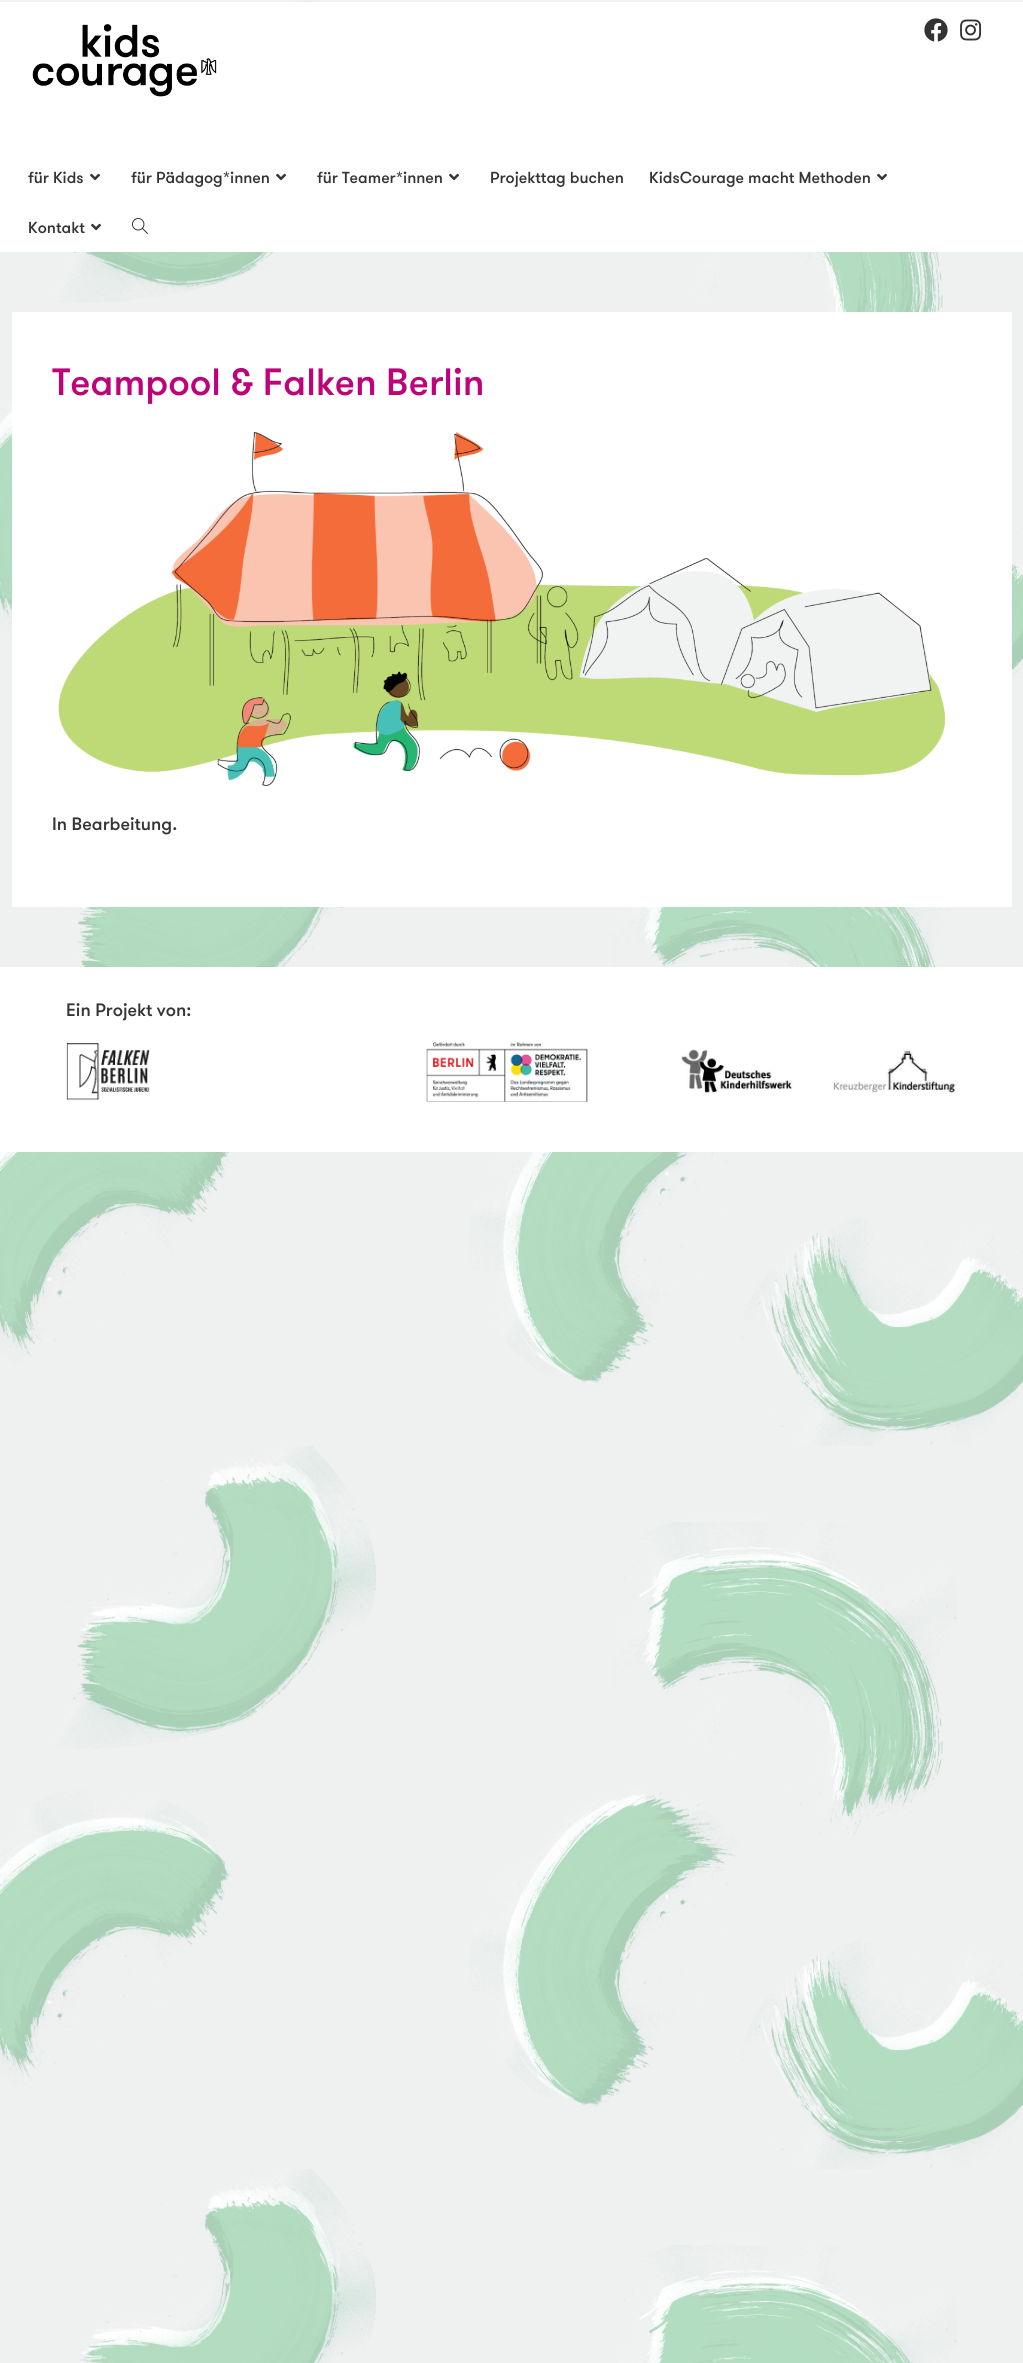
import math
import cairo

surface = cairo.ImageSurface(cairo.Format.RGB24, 1023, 2363)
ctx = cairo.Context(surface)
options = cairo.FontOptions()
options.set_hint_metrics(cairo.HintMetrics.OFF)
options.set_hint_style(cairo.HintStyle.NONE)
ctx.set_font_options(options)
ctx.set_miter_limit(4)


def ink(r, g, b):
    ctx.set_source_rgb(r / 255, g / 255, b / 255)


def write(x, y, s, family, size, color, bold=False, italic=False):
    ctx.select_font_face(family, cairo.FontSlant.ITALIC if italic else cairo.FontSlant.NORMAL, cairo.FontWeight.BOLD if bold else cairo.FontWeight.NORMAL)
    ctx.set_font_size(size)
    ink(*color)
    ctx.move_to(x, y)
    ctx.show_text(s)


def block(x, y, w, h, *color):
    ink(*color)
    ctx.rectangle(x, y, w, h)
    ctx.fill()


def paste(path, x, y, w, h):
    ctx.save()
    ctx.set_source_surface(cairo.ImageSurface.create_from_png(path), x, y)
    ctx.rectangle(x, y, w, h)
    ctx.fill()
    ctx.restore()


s1 = dict(family="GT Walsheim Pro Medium", size=16, color=(53, 53, 53))
s2 = dict(family="GT Walsheim Pro Medium", size=38, color=(190, 3, 122))
s3 = dict(family="GT Walsheim Pro Medium", size=18, color=(53, 53, 53))

ink(255, 255, 255)
ctx.paint()
paste("pic1.png", 0, 1, 1023, 2362)
block(0, 0, 1023, 1, 241, 241, 241)
block(0, 2, 1023, 250, 255, 255, 255)
paste("pic2.png", 924, 18, 24, 24)
paste("pic3.png", 960, 19, 22, 22)
paste("pic4.png", 32, 24, 185, 73)
write(28, 183, "für Kids", **s1)
paste("pic5.png", 90, 173, 10, 8)
write(131, 183, "für Pädagog*innen", **s1)
paste("pic5.png", 276, 173, 10, 8)
write(317, 183, "für Teamer*innen", **s1)
paste("pic5.png", 449, 173, 10, 8)
write(490, 183, "Projekttag buchen", **s1)
write(649, 183, "KidsCourage macht Methoden", **s1)
paste("pic5.png", 877, 173, 10, 8)
write(28, 233, "Kontakt", **s1)
paste("pic5.png", 91, 223, 10, 8)
paste("pic6.png", 132, 218, 16, 16)
block(12, 312, 1000, 595, 255, 255, 255)
write(52, 395, "Teampool & Falken Berlin", **s2)
paste("pic7.png", 58, 432, 888, 354)
write(52, 830, "In Bearbeitung.", **s3)
block(0, 967, 1023, 185, 255, 255, 255)
write(66, 1016, "Ein Projekt von:", **s3)
paste("pic8.png", 66, 1043, 84, 58)
paste("pic9.png", 426, 1042, 162, 60)
paste("pic10.png", 681, 1049, 275, 44)
surface.write_to_png("screenshot.png")
